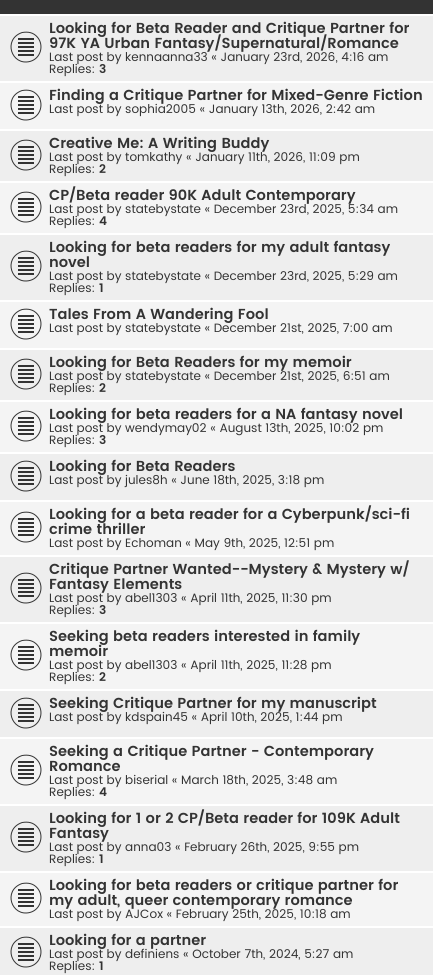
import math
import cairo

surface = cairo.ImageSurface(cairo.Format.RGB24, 433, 975)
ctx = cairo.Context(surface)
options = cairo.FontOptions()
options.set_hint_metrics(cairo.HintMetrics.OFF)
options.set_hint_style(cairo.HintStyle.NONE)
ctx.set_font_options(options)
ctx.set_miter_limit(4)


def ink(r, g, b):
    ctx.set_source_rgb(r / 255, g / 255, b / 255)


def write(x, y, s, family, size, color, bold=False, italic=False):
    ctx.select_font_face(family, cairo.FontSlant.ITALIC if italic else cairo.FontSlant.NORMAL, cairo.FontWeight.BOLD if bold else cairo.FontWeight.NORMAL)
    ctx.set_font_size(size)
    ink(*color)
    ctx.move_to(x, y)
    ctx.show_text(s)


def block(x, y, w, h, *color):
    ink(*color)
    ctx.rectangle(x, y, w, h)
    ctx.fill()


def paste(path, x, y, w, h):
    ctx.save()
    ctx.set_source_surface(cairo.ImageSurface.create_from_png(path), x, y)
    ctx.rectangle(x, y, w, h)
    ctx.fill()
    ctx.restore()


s1 = dict(family="Poppins SemiBold", size=14.5, color=(51, 51, 51))
s2 = dict(family="Poppins", size=12.1, color=(51, 51, 51))
s3 = dict(family="Poppins SemiBold", size=12.1, color=(51, 51, 51))

ink(51, 51, 51)
ctx.paint()
block(0, 16, 433, 65, 238, 238, 238)
block(0, 14, 433, 2, 255, 255, 255)
paste("pic1.png", 10, 31, 32, 32)
write(49, 33, "Looking for Beta Reader and Critique Partner for", **s1)
write(49, 48, "97K YA Urban Fantasy/Supernatural/Romance", **s1)
write(49, 61, "Last post by kennaanna33 « January 23rd, 2026, 4:16 am", **s2)
write(49, 73, "Replies:", **s2)
write(99, 73, "3", **s3)
block(0, 83, 433, 46, 244, 244, 244)
block(0, 81, 433, 2, 255, 255, 255)
paste("pic2.png", 10, 89, 32, 32)
write(49, 100, "Finding a Critique Partner for Mixed-Genre Fiction", **s1)
write(49, 113, "Last post by sophia2005 « January 13th, 2026, 2:42 am", **s2)
block(0, 131, 433, 50, 238, 238, 238)
block(0, 129, 433, 2, 255, 255, 255)
paste("pic1.png", 10, 139, 32, 32)
write(49, 148, "Creative Me: A Writing Buddy", **s1)
write(49, 161, "Last post by tomkathy « January 11th, 2026, 11:09 pm", **s2)
write(49, 173, "Replies:", **s2)
write(99, 173, "2", **s3)
block(0, 183, 433, 50, 244, 244, 244)
block(0, 181, 433, 2, 255, 255, 255)
paste("pic2.png", 10, 191, 32, 32)
write(49, 200, "CP/Beta reader 90K Adult Contemporary", **s1)
write(49, 213, "Last post by statebystate « December 23rd, 2025, 5:34 am", **s2)
write(49, 225, "Replies:", **s2)
write(99, 225, "4", **s3)
block(0, 235, 433, 65, 238, 238, 238)
block(0, 233, 433, 2, 255, 255, 255)
paste("pic1.png", 10, 250, 32, 32)
write(49, 252, "Looking for beta readers for my adult fantasy", **s1)
write(49, 267, "novel", **s1)
write(49, 280, "Last post by statebystate « December 23rd, 2025, 5:29 am", **s2)
write(49, 292, "Replies:", **s2)
write(99, 292, "1", **s3)
block(0, 302, 433, 46, 244, 244, 244)
block(0, 300, 433, 2, 255, 255, 255)
paste("pic2.png", 10, 308, 32, 32)
write(49, 319, "Tales From A Wandering Fool", **s1)
write(49, 332, "Last post by statebystate « December 21st, 2025, 7:00 am", **s2)
block(0, 350, 433, 50, 238, 238, 238)
block(0, 348, 433, 2, 255, 255, 255)
paste("pic1.png", 10, 358, 32, 32)
write(49, 367, "Looking for Beta Readers for my memoir", **s1)
write(49, 380, "Last post by statebystate « December 21st, 2025, 6:51 am", **s2)
write(49, 392, "Replies:", **s2)
write(99, 392, "2", **s3)
block(0, 402, 433, 50, 244, 244, 244)
block(0, 400, 433, 2, 255, 255, 255)
paste("pic2.png", 10, 410, 32, 32)
write(49, 419, "Looking for beta readers for a NA fantasy novel", **s1)
write(49, 432, "Last post by wendymay02 « August 13th, 2025, 10:02 pm", **s2)
write(49, 444, "Replies:", **s2)
write(99, 444, "3", **s3)
block(0, 454, 433, 46, 238, 238, 238)
block(0, 452, 433, 2, 255, 255, 255)
paste("pic1.png", 10, 460, 32, 32)
write(49, 471, "Looking for Beta Readers", **s1)
write(49, 484, "Last post by jules8h « June 18th, 2025, 3:18 pm", **s2)
block(0, 502, 433, 53, 244, 244, 244)
block(0, 500, 433, 2, 255, 255, 255)
paste("pic2.png", 10, 511, 32, 32)
write(49, 519, "Looking for a beta reader for a Cyberpunk/sci-fi", **s1)
write(49, 534, "crime thriller", **s1)
write(49, 547, "Last post by Echoman « May 9th, 2025, 12:51 pm", **s2)
block(0, 557, 433, 65, 238, 238, 238)
block(0, 555, 433, 2, 255, 255, 255)
paste("pic1.png", 10, 572, 32, 32)
write(49, 574, "Critique Partner Wanted--Mystery & Mystery w/", **s1)
write(49, 589, "Fantasy Elements", **s1)
write(49, 602, "Last post by abel1303 « April 11th, 2025, 11:30 pm", **s2)
write(49, 614, "Replies:", **s2)
write(99, 614, "3", **s3)
block(0, 624, 433, 65, 244, 244, 244)
block(0, 622, 433, 2, 255, 255, 255)
paste("pic2.png", 10, 639, 32, 32)
write(49, 641, "Seeking beta readers interested in family", **s1)
write(49, 656, "memoir", **s1)
write(49, 669, "Last post by abel1303 « April 11th, 2025, 11:28 pm", **s2)
write(49, 681, "Replies:", **s2)
write(99, 681, "2", **s3)
block(0, 691, 433, 46, 238, 238, 238)
block(0, 689, 433, 2, 255, 255, 255)
paste("pic1.png", 10, 697, 32, 32)
write(49, 708, "Seeking Critique Partner for my manuscript", **s1)
write(49, 721, "Last post by kdspain45 « April 10th, 2025, 1:44 pm", **s2)
block(0, 739, 433, 65, 244, 244, 244)
block(0, 737, 433, 2, 255, 255, 255)
paste("pic2.png", 10, 754, 32, 32)
write(49, 756, "Seeking a Critique Partner - Contemporary", **s1)
write(49, 771, "Romance", **s1)
write(49, 784, "Last post by biserial « March 18th, 2025, 3:48 am", **s2)
write(49, 796, "Replies:", **s2)
write(99, 796, "4", **s3)
block(0, 806, 433, 65, 238, 238, 238)
block(0, 804, 433, 2, 255, 255, 255)
paste("pic1.png", 10, 821, 32, 32)
write(49, 823, "Looking for 1 or 2 CP/Beta reader for 109K Adult", **s1)
write(49, 838, "Fantasy", **s1)
write(49, 851, "Last post by anna03 « February 26th, 2025, 9:55 pm", **s2)
write(49, 863, "Replies:", **s2)
write(99, 863, "1", **s3)
block(0, 873, 433, 53, 244, 244, 244)
block(0, 871, 433, 2, 255, 255, 255)
paste("pic2.png", 10, 882, 32, 32)
write(49, 890, "Looking for beta readers or critique partner for", **s1)
write(49, 905, "my adult, queer contemporary romance", **s1)
write(49, 918, "Last post by AJCox « February 25th, 2025, 10:18 am", **s2)
block(0, 928, 433, 47, 238, 238, 238)
block(0, 926, 433, 2, 255, 255, 255)
paste("pic1.png", 10, 936, 32, 32)
write(49, 945, "Looking for a partner", **s1)
write(49, 958, "Last post by definiens « October 7th, 2024, 5:27 am", **s2)
write(49, 970, "Replies:", **s2)
write(99, 970, "1", **s3)
surface.write_to_png("screenshot.png")
